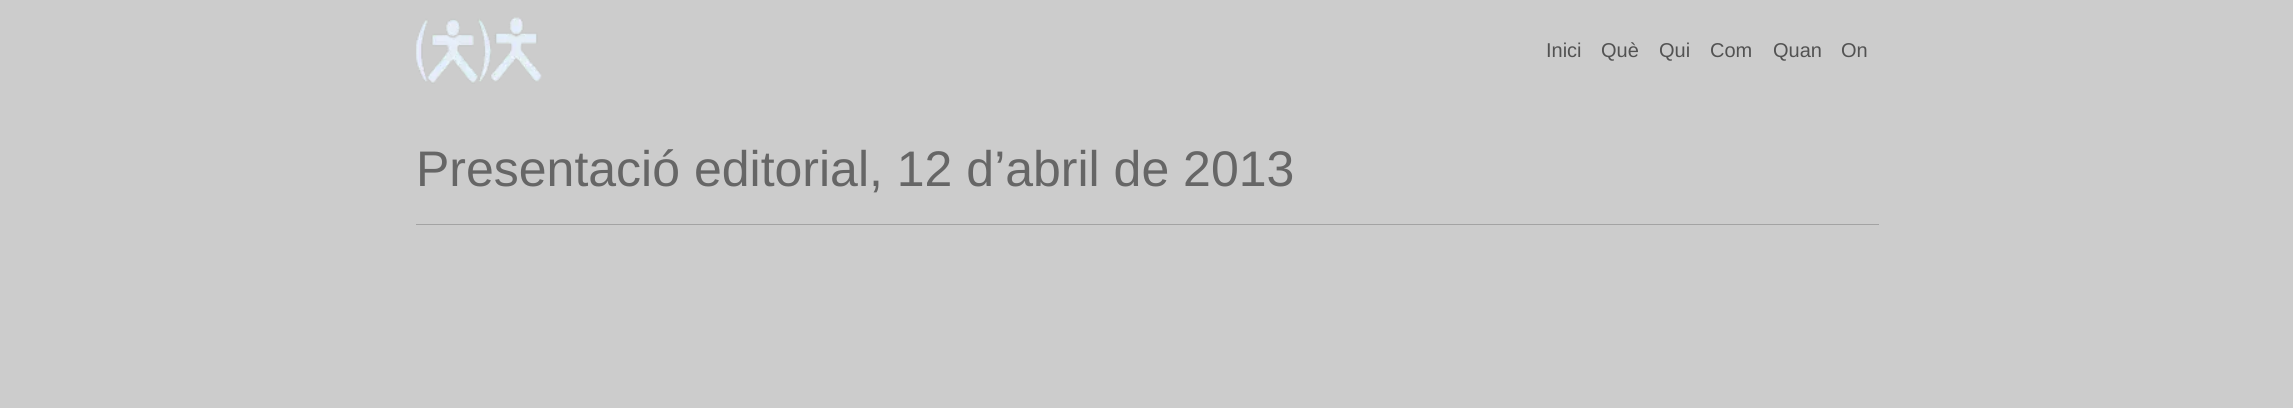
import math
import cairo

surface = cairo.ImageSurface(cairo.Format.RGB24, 2293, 408)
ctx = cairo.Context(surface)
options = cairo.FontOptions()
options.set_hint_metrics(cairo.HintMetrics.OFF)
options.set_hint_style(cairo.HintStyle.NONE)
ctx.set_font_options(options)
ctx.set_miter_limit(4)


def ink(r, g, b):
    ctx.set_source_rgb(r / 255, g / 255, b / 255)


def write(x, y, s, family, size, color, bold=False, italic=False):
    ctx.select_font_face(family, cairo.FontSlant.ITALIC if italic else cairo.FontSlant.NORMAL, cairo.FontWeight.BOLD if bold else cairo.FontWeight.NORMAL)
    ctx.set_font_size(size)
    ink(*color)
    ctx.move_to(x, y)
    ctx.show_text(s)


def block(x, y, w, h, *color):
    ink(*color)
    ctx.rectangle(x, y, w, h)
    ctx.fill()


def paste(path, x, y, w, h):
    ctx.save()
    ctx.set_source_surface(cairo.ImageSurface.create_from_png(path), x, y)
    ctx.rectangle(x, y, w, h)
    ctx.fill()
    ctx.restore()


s1 = dict(family="Liberation Sans", size=20, color=(82, 82, 82))
s2 = dict(family="Liberation Sans", size=50, color=(102, 102, 102))

ink(204, 204, 204)
ctx.paint()
paste("pic1.png", 416, 17, 126, 67)
write(1546, 57, "Inici", **s1)
write(1601, 57, "Què", **s1)
write(1659, 57, "Qui", **s1)
write(1710, 57, "Com", **s1)
write(1773, 57, "Quan", **s1)
write(1841, 57, "On", **s1)
write(416, 186, "Presentació editorial, 12 d’abril de 2013", **s2)
block(416, 224, 1463, 1, 163, 163, 163)
surface.write_to_png("screenshot.png")
